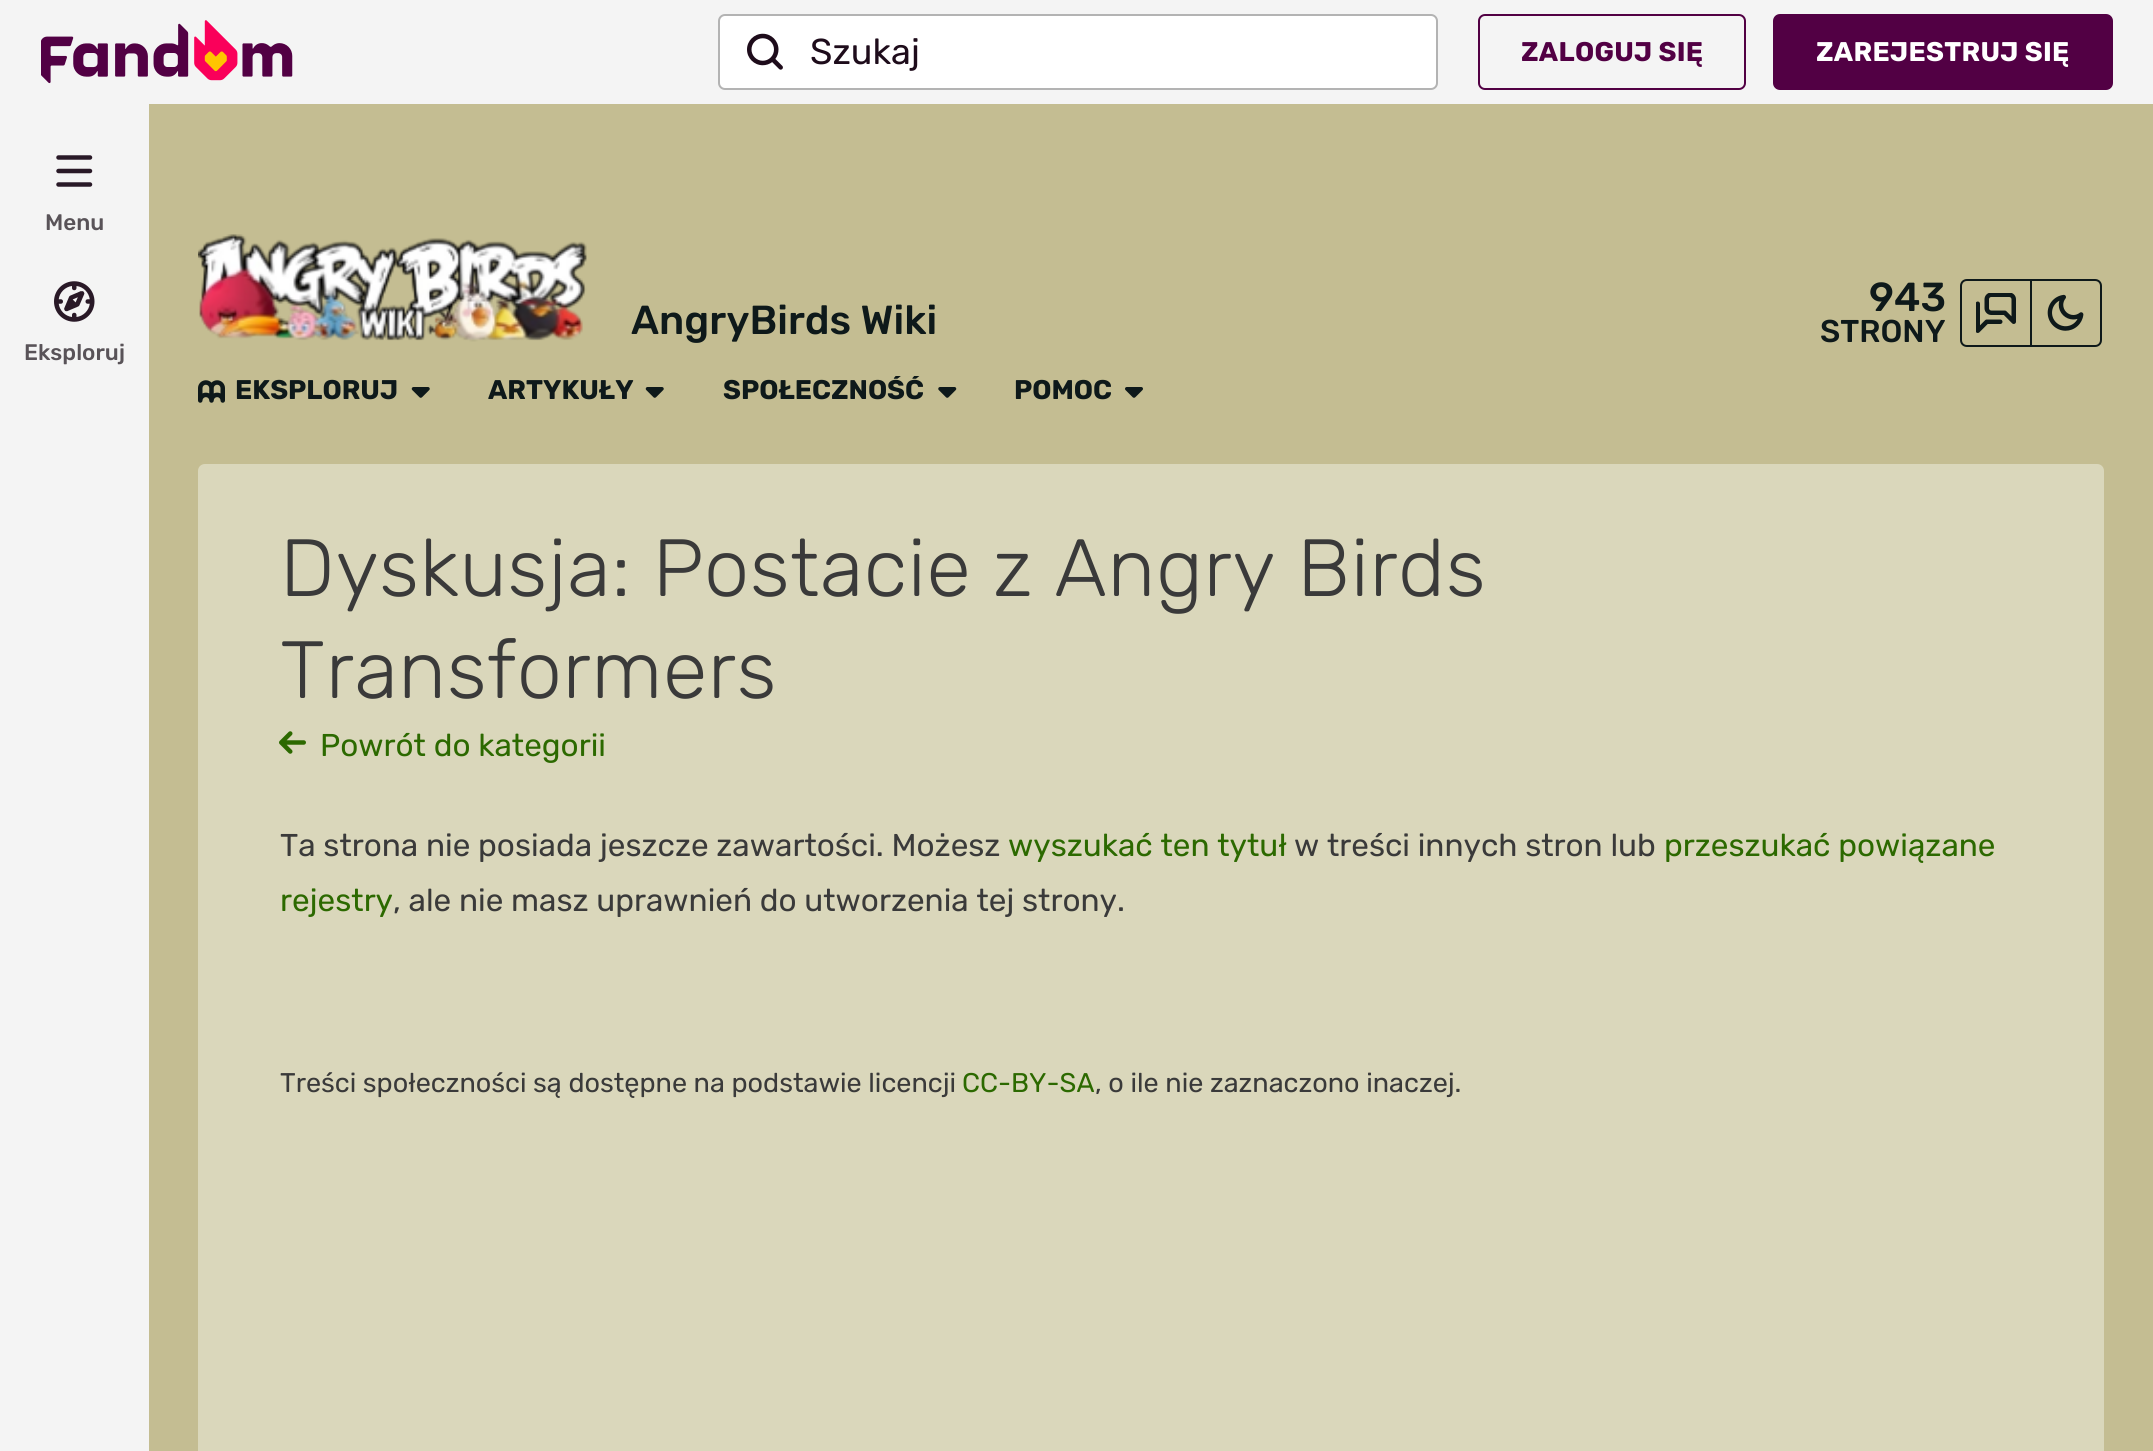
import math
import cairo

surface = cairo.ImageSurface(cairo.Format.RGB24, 2153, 1451)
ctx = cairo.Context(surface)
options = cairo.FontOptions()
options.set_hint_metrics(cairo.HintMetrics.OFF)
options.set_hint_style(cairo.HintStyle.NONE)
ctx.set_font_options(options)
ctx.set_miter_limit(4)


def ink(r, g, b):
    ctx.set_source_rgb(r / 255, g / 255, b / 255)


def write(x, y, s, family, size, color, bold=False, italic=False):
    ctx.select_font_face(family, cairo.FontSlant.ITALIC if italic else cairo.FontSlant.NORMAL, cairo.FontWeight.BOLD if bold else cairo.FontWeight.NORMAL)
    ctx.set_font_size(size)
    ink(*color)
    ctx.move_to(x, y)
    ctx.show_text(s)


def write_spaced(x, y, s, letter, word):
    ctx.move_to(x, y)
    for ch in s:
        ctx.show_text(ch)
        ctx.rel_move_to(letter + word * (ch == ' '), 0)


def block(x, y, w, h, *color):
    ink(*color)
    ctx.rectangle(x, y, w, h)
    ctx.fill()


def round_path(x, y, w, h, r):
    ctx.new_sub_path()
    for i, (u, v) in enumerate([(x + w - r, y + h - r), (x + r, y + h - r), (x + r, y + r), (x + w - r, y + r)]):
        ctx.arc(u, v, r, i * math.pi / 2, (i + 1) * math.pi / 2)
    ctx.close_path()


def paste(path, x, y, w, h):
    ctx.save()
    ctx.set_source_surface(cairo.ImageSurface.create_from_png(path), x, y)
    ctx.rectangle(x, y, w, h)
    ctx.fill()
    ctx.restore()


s1 = dict(family="Rubik", size=36, color=(30, 12, 27))
s2 = dict(family="Rubik Medium", size=22.5, color=(89, 83, 88))
s3 = dict(family="Rubik Medium", size=40.5, color=(14, 25, 26))
s4 = dict(family="Rubik Medium", size=31.5, color=(14, 25, 26))
s5 = dict(family="Rubik", size=27, color=(14, 25, 26), bold=True)
s6 = dict(family="Rubik", size=31.5, color=(44, 105, 0))
s7 = dict(family="Rubik", size=31.5, color=(58, 58, 58))
s8 = dict(family="Rubik", size=27, color=(58, 58, 58))
s9 = dict(family="Rubik", size=27, color=(44, 105, 0))

ink(196, 189, 146)
ctx.paint()
block(0, 0, 2153, 104, 244, 244, 244)
paste("pic1.png", 41, 20, 252, 64)
ink(255, 255, 255)
round_path(719, 15, 718, 74, 6)
ctx.fill_preserve()
ink(179, 179, 179)
ctx.stroke()
paste("pic2.png", 747, 33, 36, 37)
write(810, 64, "Szukaj", **s1)
round_path(1479, 15, 266, 74, 6)
ink(82, 0, 68)
ctx.stroke()
ctx.select_font_face("Rubik", cairo.FontSlant.NORMAL, cairo.FontWeight.BOLD)
ctx.set_font_size(27)
write_spaced(1521, 61, "ZALOGUJ SIĘ", 0.3, 0)
round_path(1774, 15, 338, 74, 6)
ctx.fill_preserve()
ctx.stroke()
ink(255, 255, 255)
write_spaced(1816, 61, "ZAREJESTRUJ SIĘ", 0.3, 0)
block(0, 104, 149, 1347, 244, 244, 244)
paste("pic3.png", 56, 155, 37, 32)
write(45, 230, "Menu", **s2)
paste("pic4.png", 54, 281, 41, 41)
write(24, 360, "Eksploruj", **s2)
paste("pic5.png", 198, 234, 389, 108)
write(631, 334, "AngryBirds Wiki", **s3)
write(1869, 311, "943", **s3)
write(1820, 342, "STRONY", **s4)
ctx.new_path()
ctx.move_to(1967, 280)
ctx.line_to(2031, 280)
ctx.line_to(2031, 346)
ctx.line_to(1967, 346)
ctx.curve_to(1963.5, 346, 1961, 343.5, 1961, 340)
ctx.line_to(1961, 286)
ctx.curve_to(1961, 282.5, 1963.5, 280, 1967, 280)
ctx.close_path()
ctx.stroke()
paste("pic6.png", 1976, 293, 40, 40)
ctx.new_path()
ctx.move_to(2031, 280)
ctx.line_to(2095, 280)
ctx.curve_to(2098.5, 280, 2101, 282.5, 2101, 286)
ctx.line_to(2101, 340)
ctx.curve_to(2101, 343.5, 2098.5, 346, 2095, 346)
ctx.line_to(2031, 346)
ctx.close_path()
ctx.stroke()
paste("pic7.png", 2047, 294, 37, 37)
paste("pic8.png", 198, 380, 27, 23)
write(235, 399, "EKSPLORUJ", **s5)
paste("pic9.png", 411, 387, 19, 11)
write(488, 399, "ARTYKUŁY", **s5)
paste("pic9.png", 645, 387, 19, 11)
ctx.save()
ctx.rectangle(722, 376, 203, 34)
ctx.clip()
write(723, 399, "SPOŁECZNOŚĆ", **s5)
ctx.restore()
paste("pic10.png", 938, 387, 19, 11)
write(1014, 399, "POMOC", **s5)
paste("pic11.png", 1125, 387, 18, 11)
ink(218, 215, 187)
ctx.new_path()
ctx.move_to(205, 464)
ctx.line_to(2097, 464)
ctx.curve_to(2101, 464, 2104, 467, 2104, 471)
ctx.line_to(2104, 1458)
ctx.line_to(198, 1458)
ctx.line_to(198, 471)
ctx.curve_to(198, 467, 201, 464, 205, 464)
ctx.close_path()
ctx.fill()
ctx.select_font_face("Rubik Light")
ctx.set_font_size(81)
ink(58, 58, 58)
write_spaced(280, 596, "Dyskusja: Postacie z Angry Birds", 0.55, 0)
write_spaced(280, 698, "Transformers", 0.55, 0)
paste("pic12.png", 279, 731, 27, 23)
write(320, 756, "Powrót do kategorii", **s6)
write(280, 856, "Ta strona nie posiada jeszcze zawartości. Możesz", **s7)
write(1008, 856, "wyszukać ten tytuł", **s6)
write(1294, 856, "w treści innych stron lub", **s7)
write(1664, 856, "przeszukać powiązane", **s6)
write(280, 911, "rejestry", **s6)
write(393, 911, ", ale nie masz uprawnień do utworzenia tej strony.", **s7)
write(280, 1092, "Treści społeczności są dostępne na podstawie licencji", **s8)
write(962, 1092, "CC-BY-SA", **s9)
write(1095, 1092, ", o ile nie zaznaczono inaczej.", **s8)
surface.write_to_png("screenshot.png")
